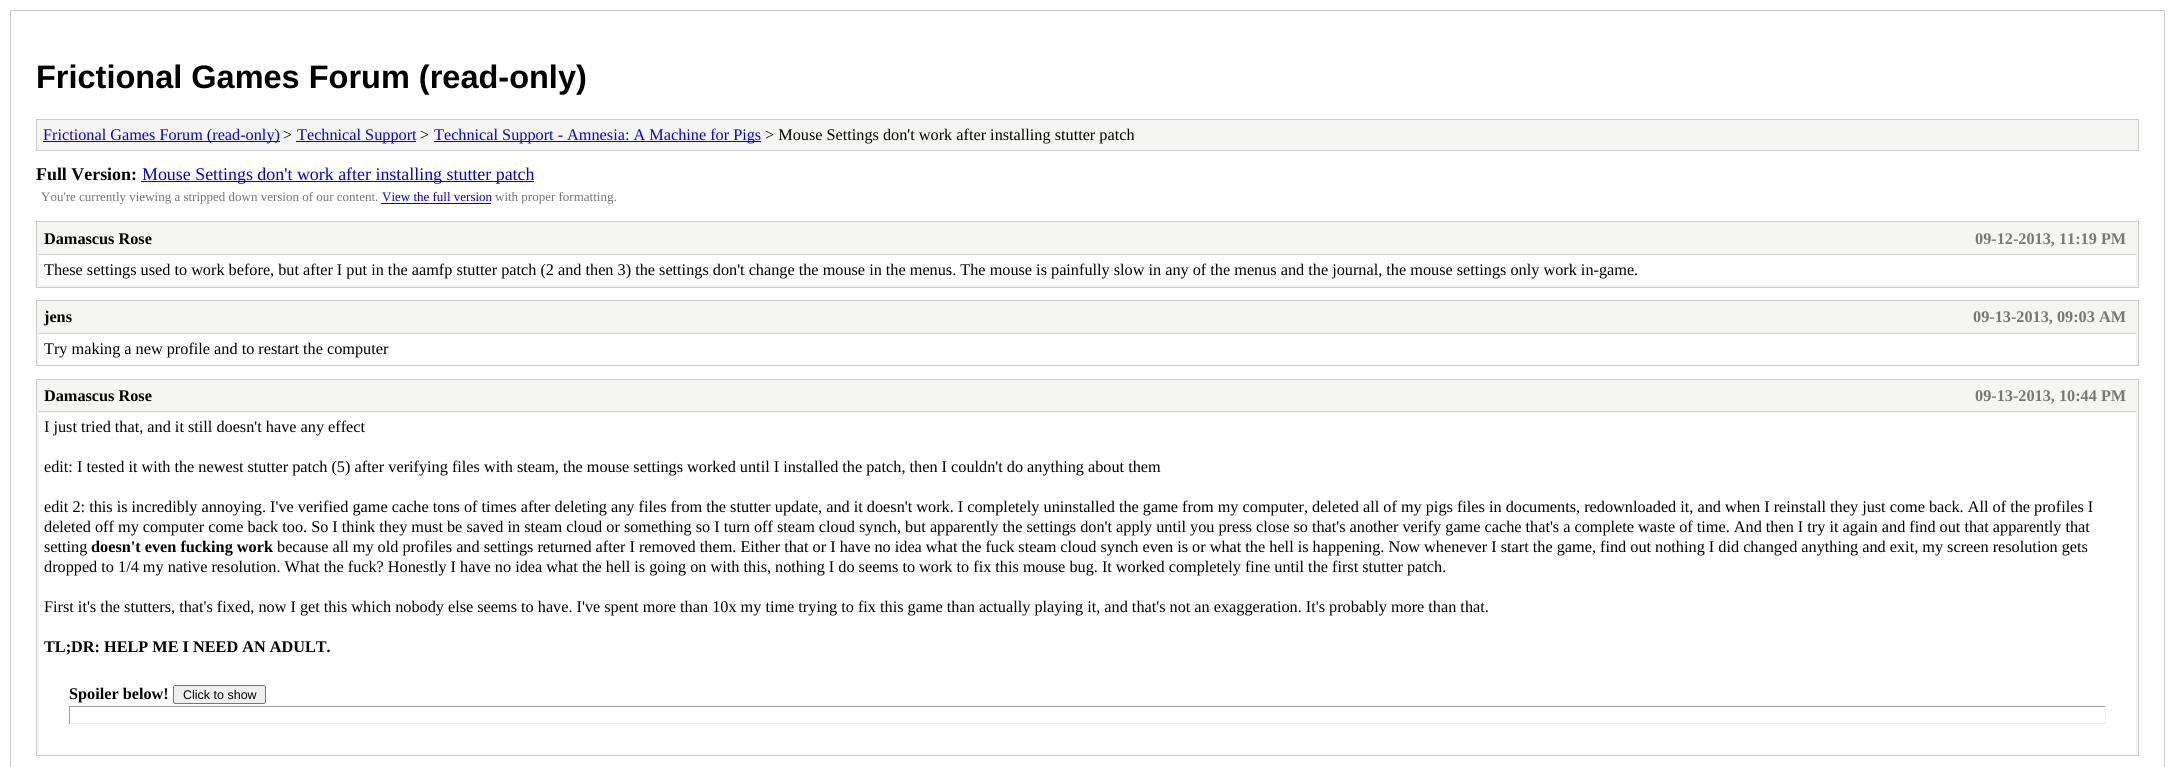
import math
import cairo

surface = cairo.ImageSurface(cairo.Format.RGB24, 2174, 767)
ctx = cairo.Context(surface)
options = cairo.FontOptions()
options.set_hint_metrics(cairo.HintMetrics.OFF)
options.set_hint_style(cairo.HintStyle.NONE)
ctx.set_font_options(options)
ctx.set_miter_limit(4)


def ink(r, g, b):
    ctx.set_source_rgb(r / 255, g / 255, b / 255)


def write(x, y, s, family, size, color, bold=False, italic=False):
    ctx.select_font_face(family, cairo.FontSlant.ITALIC if italic else cairo.FontSlant.NORMAL, cairo.FontWeight.BOLD if bold else cairo.FontWeight.NORMAL)
    ctx.set_font_size(size)
    ink(*color)
    ctx.move_to(x, y)
    ctx.show_text(s)


def block(x, y, w, h, *color):
    ink(*color)
    ctx.rectangle(x, y, w, h)
    ctx.fill()


def round_path(x, y, w, h, r):
    ctx.new_sub_path()
    for i, (u, v) in enumerate([(x + w - r, y + h - r), (x + r, y + h - r), (x + r, y + r), (x + w - r, y + r)]):
        ctx.arc(u, v, r, i * math.pi / 2, (i + 1) * math.pi / 2)
    ctx.close_path()


s1 = dict(family="Liberation Sans", size=32.5, color=(0, 0, 0), bold=True)
s2 = dict(family="Liberation Serif", size=16.25, color=(0, 0, 238))
s3 = dict(family="Liberation Serif", size=16.25, color=(0, 0, 0))
s4 = dict(family="Liberation Serif", size=17.9, color=(0, 0, 0), bold=True)
s5 = dict(family="Liberation Serif", size=17.9, color=(0, 0, 238))
s6 = dict(family="Liberation Serif", size=13, color=(119, 119, 119))
s7 = dict(family="Liberation Serif", size=13, color=(0, 0, 238))
s8 = dict(family="Liberation Serif", size=16.25, color=(0, 0, 0), bold=True)
s9 = dict(family="Liberation Serif", size=16.25, color=(119, 119, 119), bold=True)
s10 = dict(family="Liberation Sans", size=12.5, color=(0, 0, 0))

ink(255, 255, 255)
ctx.paint()
ctx.rectangle(10.5, 10.5, 2154, 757)
ink(204, 204, 204)
ctx.set_line_width(1)
ctx.stroke()
write(36, 88, "Frictional Games Forum (read-only)", **s1)
ink(245, 245, 244)
ctx.rectangle(36.5, 119.5, 2102, 31)
ctx.fill_preserve()
ink(204, 204, 204)
ctx.stroke()
block(43, 141, 237, 1, 0, 0, 238)
write(43, 140, "Frictional Games Forum (read-only)", **s2)
write(283, 140, ">", **s3)
block(296, 141, 120, 1, 0, 0, 238)
write(297, 140, "Technical Support", **s2)
write(420, 140, ">", **s3)
block(434, 141, 327, 1, 0, 0, 238)
write(434, 140, "Technical Support - Amnesia: A Machine for Pigs", **s2)
write(765, 140, "> Mouse Settings don't work after installing stutter patch", **s3)
write(36, 180, "Full Version:", **s4)
block(141, 181, 393, 1, 0, 0, 238)
write(142, 180, "Mouse Settings don't work after installing stutter patch", **s5)
write(41, 201, "You're currently viewing a stripped down version of our content.", **s6)
write(382, 201, "View the full version", **s7)
block(381, 203, 110, 1, 0, 0, 238)
write(495, 201, "with proper formatting.", **s6)
ink(245, 245, 244)
ctx.rectangle(36.5, 221.5, 2102, 66)
ctx.fill_preserve()
ink(204, 204, 204)
ctx.stroke()
block(39, 254, 2097, 1, 204, 204, 204)
write(44, 244, "Damascus Rose", **s8)
write(1975, 244, "09-12-2013, 11:19 PM", **s9)
block(39, 255, 2097, 30, 255, 255, 255)
write(44, 275, "These settings used to work before, but after I put in the aamfp stutter patch (2 and then 3) the settings don't change the mouse in the menus. The mouse is painfully slow in any of the menus and the journal, the mouse settings only work in-game.", **s3)
ink(245, 245, 244)
ctx.rectangle(36.5, 300.5, 2102, 65)
ctx.fill_preserve()
ink(204, 204, 204)
ctx.stroke()
block(39, 333, 2097, 1, 204, 204, 204)
write(44, 322, "jens", **s8)
write(1973, 322, "09-13-2013, 09:03 AM", **s9)
block(39, 334, 2097, 30, 255, 255, 255)
write(44, 354, "Try making a new profile and to restart the computer", **s3)
ink(245, 245, 244)
ctx.rectangle(36.5, 379.5, 2102, 376)
ctx.fill_preserve()
ink(204, 204, 204)
ctx.stroke()
block(39, 411, 2097, 1, 204, 204, 204)
write(44, 401, "Damascus Rose", **s8)
write(1975, 401, "09-13-2013, 10:44 PM", **s9)
block(39, 413, 2097, 341, 255, 255, 255)
write(44, 432, "I just tried that, and it still doesn't have any effect", **s3)
write(44, 472, "edit: I tested it with the newest stutter patch (5) after verifying files with steam, the mouse settings worked until I installed the patch, then I couldn't do anything about them", **s3)
write(44, 512, "edit 2: this is incredibly annoying. I've verified game cache tons of times after deleting any files from the stutter update, and it doesn't work. I completely uninstalled the game from my computer, deleted all of my pigs files in documents, redownloaded it, and when I reinstall they just come back. All of the profiles I", **s3)
write(44, 532, "deleted off my computer come back too. So I think they must be saved in steam cloud or something so I turn off steam cloud synch, but apparently the settings don't apply until you press close so that's another verify game cache that's a complete waste of time. And then I try it again and find out that apparently that", **s3)
write(44, 552, "setting", **s3)
write(91, 552, "doesn't even fucking work", **s8)
write(277, 552, "because all my old profiles and settings returned after I removed them. Either that or I have no idea what the fuck steam cloud synch even is or what the hell is happening. Now whenever I start the game, find out nothing I did changed anything and exit, my screen resolution gets", **s3)
write(44, 572, "dropped to 1/4 my native resolution. What the fuck? Honestly I have no idea what the hell is going on with this, nothing I do seems to work to fix this mouse bug. It worked completely fine until the first stutter patch.", **s3)
write(44, 612, "First it's the stutters, that's fixed, now I get this which nobody else seems to have. I've spent more than 10x my time trying to fix this game than actually playing it, and that's not an exaggeration. It's probably more than that.", **s3)
write(44, 652, "TL;DR: HELP ME I NEED AN ADULT.", **s8)
write(69, 699, "Spoiler below!", **s8)
ink(239, 239, 239)
round_path(173.5, 685.5, 92, 18, 2)
ctx.fill_preserve()
ink(118, 118, 118)
ctx.stroke()
write(183, 699, "Click to show", **s10)
block(69, 706, 2037, 1, 159, 159, 159)
block(2105, 706, 1, 18, 238, 238, 238)
block(69, 723, 2037, 1, 238, 238, 238)
block(69, 706, 1, 18, 159, 159, 159)
surface.write_to_png("screenshot.png")
